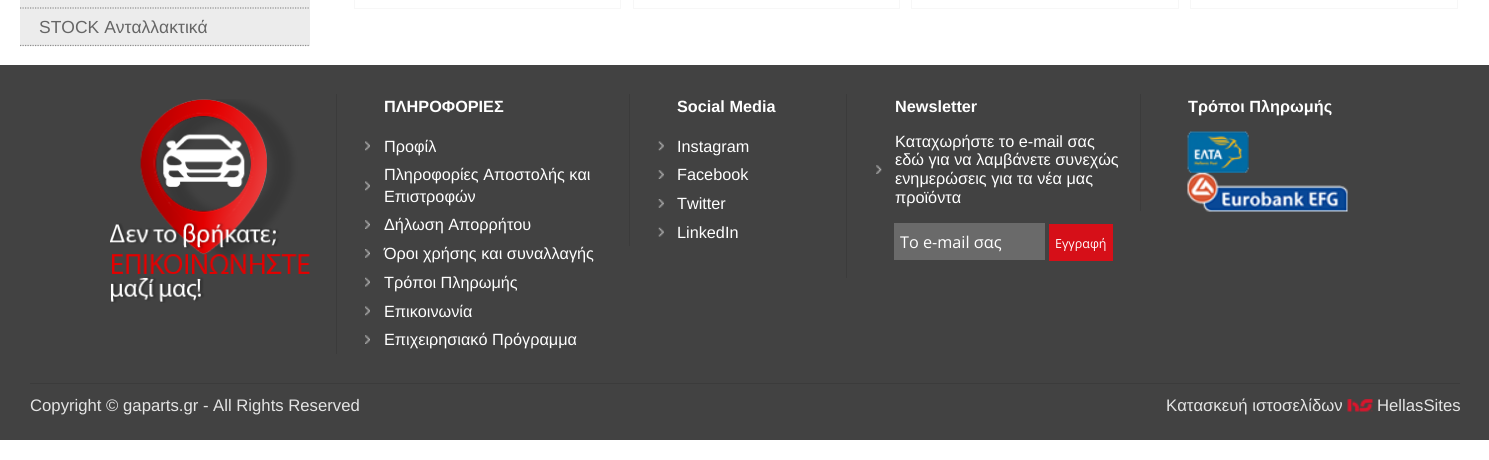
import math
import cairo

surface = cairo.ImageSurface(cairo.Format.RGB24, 1489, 460)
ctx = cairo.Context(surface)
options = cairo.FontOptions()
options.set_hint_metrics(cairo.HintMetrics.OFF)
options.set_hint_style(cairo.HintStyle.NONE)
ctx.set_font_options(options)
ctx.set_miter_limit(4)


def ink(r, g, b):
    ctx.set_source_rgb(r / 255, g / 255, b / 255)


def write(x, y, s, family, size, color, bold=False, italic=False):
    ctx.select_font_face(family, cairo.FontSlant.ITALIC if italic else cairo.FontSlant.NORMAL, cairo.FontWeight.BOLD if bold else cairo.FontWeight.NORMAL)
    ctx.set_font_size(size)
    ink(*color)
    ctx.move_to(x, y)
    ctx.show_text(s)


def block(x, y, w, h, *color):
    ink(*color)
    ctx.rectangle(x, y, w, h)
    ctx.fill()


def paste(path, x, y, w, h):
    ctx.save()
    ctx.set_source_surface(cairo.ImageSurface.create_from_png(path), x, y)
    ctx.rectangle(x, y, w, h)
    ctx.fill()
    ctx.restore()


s1 = dict(family="Liberation Sans", size=17.5, color=(102, 102, 102))
s2 = dict(family="Liberation Sans", size=16.25, color=(255, 255, 255), bold=True)
s3 = dict(family="Liberation Sans", size=16.25, color=(255, 255, 255))
s4 = dict(family="Open Sans", size=16.25, color=(255, 255, 255))
s5 = dict(family="Open Sans", size=12.5, color=(255, 255, 255))
s6 = dict(family="Liberation Sans", size=16.7, color=(228, 228, 228))

ink(255, 255, 255)
ctx.paint()
ctx.rectangle(354.5, -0.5, 266, 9)
ink(247, 247, 247)
ctx.set_line_width(1)
ctx.stroke()
ctx.rectangle(633.5, -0.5, 266, 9)
ctx.stroke()
ctx.rectangle(911.5, -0.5, 267, 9)
ctx.stroke()
ctx.rectangle(1190.5, -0.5, 267, 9)
ctx.stroke()
block(20, 0, 290, 46, 236, 236, 236)
ctx.new_path()
ctx.move_to(20, 8)
ctx.line_to(310, 8)
ink(142, 142, 142)
ctx.set_line_width(1.2)
ctx.set_dash([1.25, 1.25])
ctx.stroke()
ctx.new_path()
ctx.move_to(20, 45.5)
ctx.line_to(310, 45.5)
ctx.stroke()
write(39, 33, "STOCK Ανταλλακτικά", **s1)
block(0, 65, 1489, 375, 66, 66, 66)
paste("pic1.png", 110, 99, 200, 204)
block(336, 94, 1, 260, 59, 59, 59)
write(384, 112, "ΠΛΗΡΟΦΟΡΙΕΣ", **s2)
paste("pic2.png", 365, 141, 5, 10)
write(384, 152, "Προφίλ", **s3)
paste("pic2.png", 365, 181, 5, 10)
write(384, 180, "Πληροφορίες Αποστολής και", **s3)
write(384, 202, "Επιστροφών", **s3)
paste("pic3.png", 365, 220, 5, 9)
write(384, 230, "Δήλωση Απορρήτου", **s3)
paste("pic4.png", 365, 249, 5, 9)
write(384, 259, "Όροι χρήσης και συναλλαγής", **s3)
paste("pic5.png", 365, 277, 5, 10)
write(384, 288, "Τρόποι Πληρωμής", **s3)
paste("pic2.png", 365, 306, 5, 10)
write(384, 317, "Επικοινωνία", **s3)
paste("pic3.png", 365, 335, 5, 9)
write(384, 345, "Επιχειρησιακό Πρόγραμμα", **s3)
block(629, 94, 1, 152, 59, 59, 59)
write(677, 112, "Social Media", **s2)
paste("pic6.png", 658, 141, 6, 10)
write(677, 152, "Instagram", **s3)
paste("pic7.png", 658, 170, 6, 9)
write(677, 180, "Facebook", **s3)
paste("pic8.png", 658, 199, 6, 9)
write(677, 209, "Twitter", **s3)
paste("pic9.png", 658, 227, 6, 10)
write(677, 238, "LinkedIn", **s3)
block(846, 94, 1, 184, 59, 59, 59)
write(895, 112, "Newsletter", **s2)
paste("pic10.png", 876, 165, 6, 9)
write(895, 147, "Καταχωρήστε το e-mail σας", **s3)
write(895, 165, "εδώ για να λαμβάνετε συνεχώς", **s3)
write(895, 184, "ενημερώσεις για τα νέα μας", **s3)
write(895, 203, "προϊόντα", **s3)
block(894, 223, 151, 37, 106, 106, 106)
write(900, 248, "Το e-mail σας", **s4)
block(1049, 224, 64, 37, 214, 15, 24)
write(1055, 248, "Εγγραφή", **s5)
block(1140, 94, 1, 117, 59, 59, 59)
write(1188, 112, "Τρόποι Πληρωμής", **s2)
paste("pic11.png", 1187, 131, 62, 42)
paste("pic12.png", 1187, 172, 161, 40)
block(30, 383, 1430, 1, 59, 59, 59)
write(30, 411, "Copyright © gaparts.gr - All Rights Reserved", **s6)
write(1166, 411, "Κατασκευή ιστοσελίδων", **s6)
paste("pic13.png", 1347, 399, 26, 13)
write(1377, 411, "HellasSites", **s6)
surface.write_to_png("screenshot.png")
